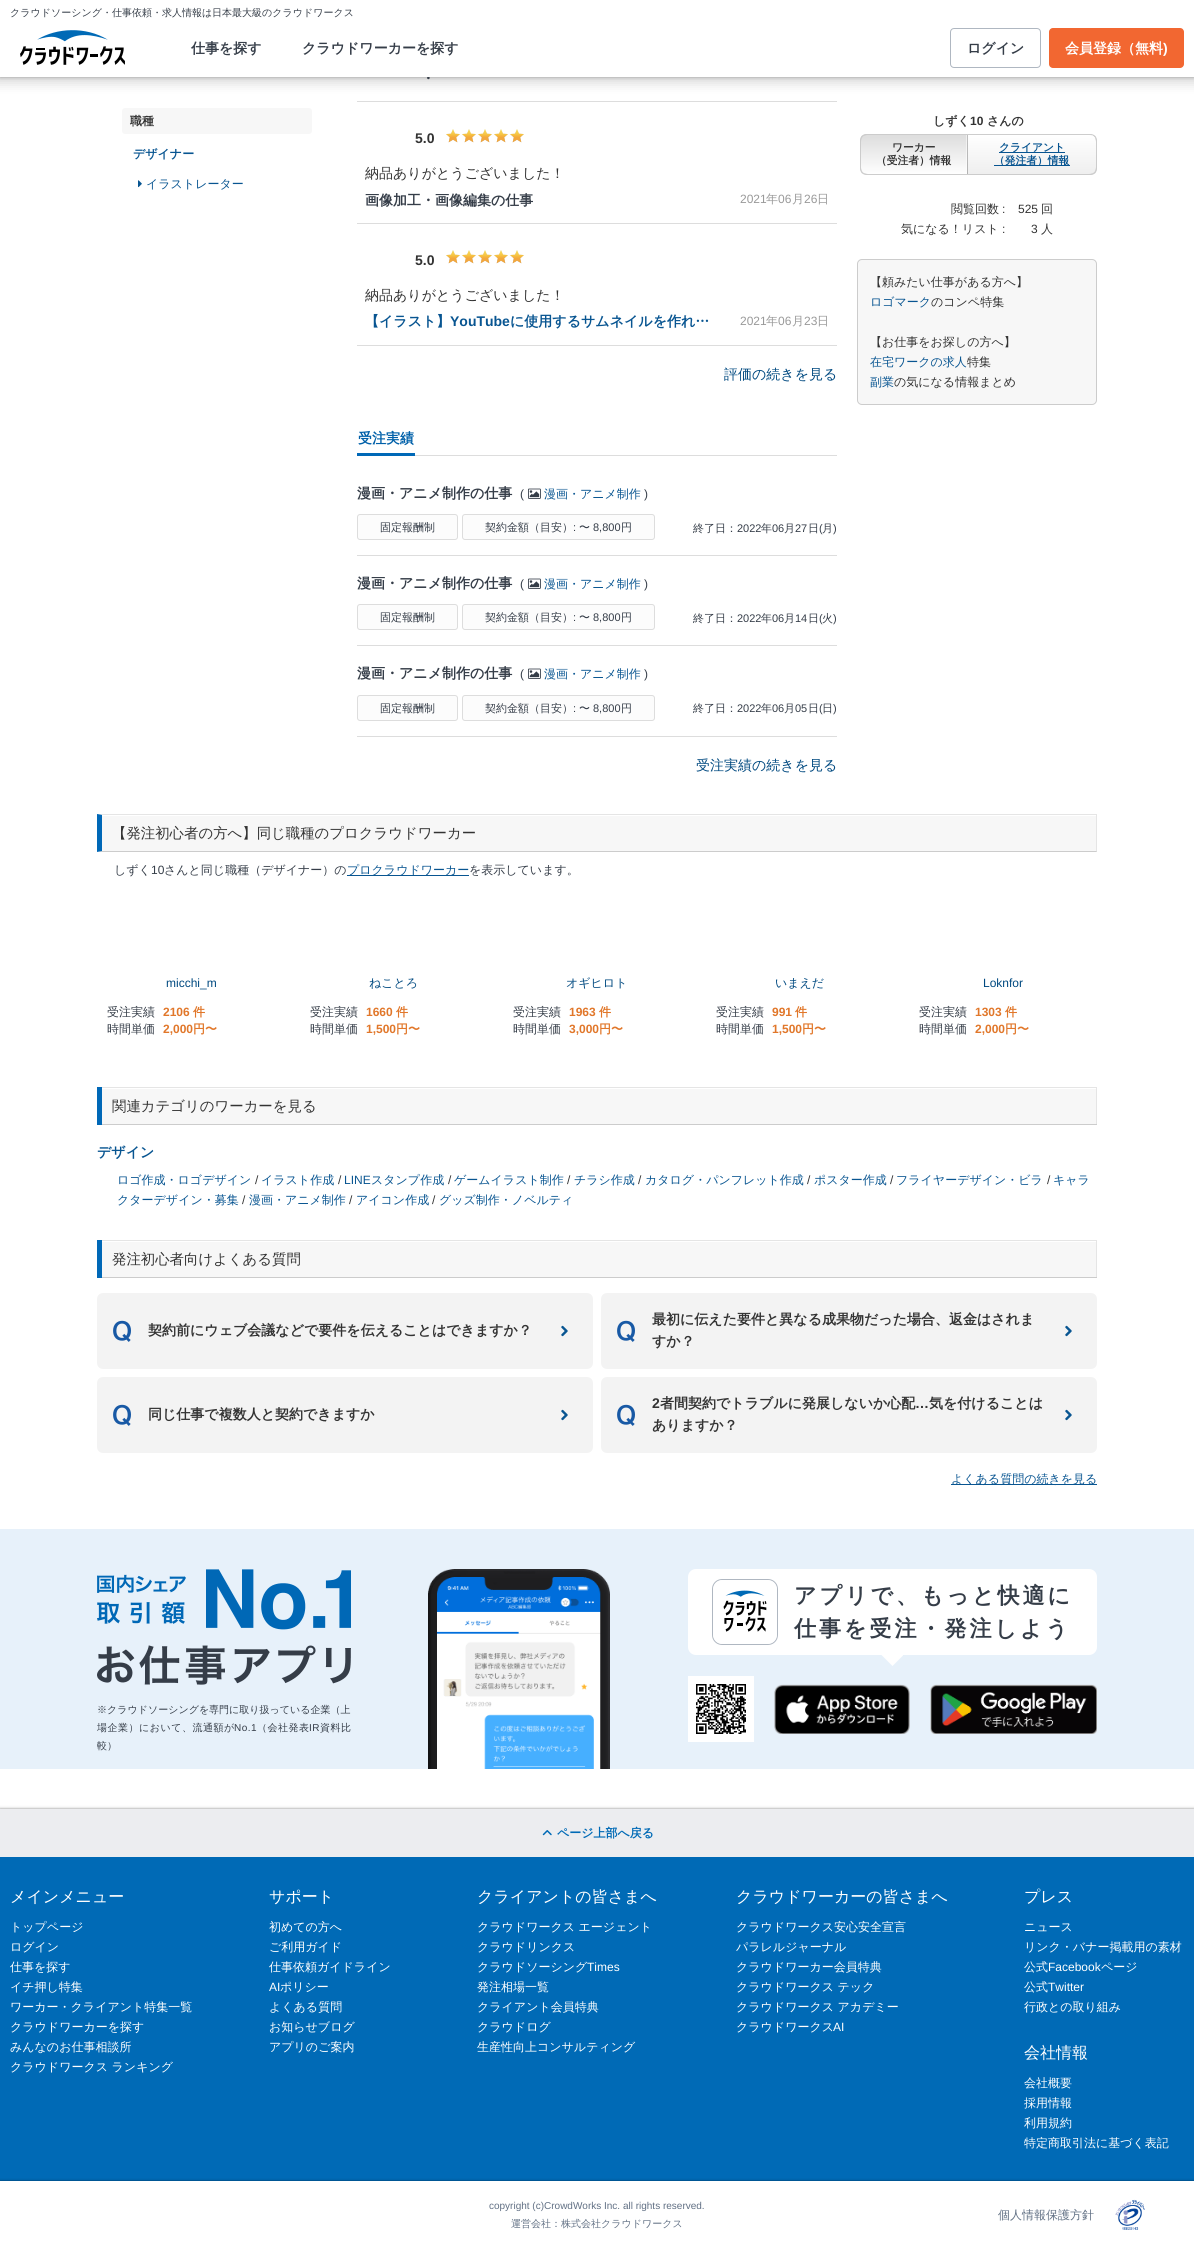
import math
import cairo

surface = cairo.ImageSurface(cairo.Format.RGB24, 1194, 2249)
ctx = cairo.Context(surface)
options = cairo.FontOptions()
options.set_hint_metrics(cairo.HintMetrics.OFF)
options.set_hint_style(cairo.HintStyle.NONE)
ctx.set_font_options(options)
ctx.set_miter_limit(4)


def ink(r, g, b):
    ctx.set_source_rgb(r / 255, g / 255, b / 255)


def write(x, y, s, family, size, color, bold=False, italic=False):
    ctx.select_font_face(family, cairo.FontSlant.ITALIC if italic else cairo.FontSlant.NORMAL, cairo.FontWeight.BOLD if bold else cairo.FontWeight.NORMAL)
    ctx.set_font_size(size)
    ink(*color)
    ctx.move_to(x, y)
    ctx.show_text(s)


def write_spaced(x, y, s, letter, word):
    ctx.move_to(x, y)
    for ch in s:
        ctx.show_text(ch)
        ctx.rel_move_to(letter + word * (ch == ' '), 0)


def block(x, y, w, h, *color):
    ink(*color)
    ctx.rectangle(x, y, w, h)
    ctx.fill()


def round_path(x, y, w, h, r):
    ctx.new_sub_path()
    for i, (u, v) in enumerate([(x + w - r, y + h - r), (x + r, y + h - r), (x + r, y + r), (x + w - r, y + r)]):
        ctx.arc(u, v, r, i * math.pi / 2, (i + 1) * math.pi / 2)
    ctx.close_path()


def blur_box(x, y, w, h, r, blur, alpha):
    ctx.push_group_with_content(cairo.Content.ALPHA)
    ctx.set_operator(cairo.Operator.SOURCE)
    for i in range(15, -16, -2):
        e = blur * i / 6
        if min(w, h) + 2 * e > 0:
            ctx.set_source_rgba(0, 0, 0, alpha * math.erfc((i - 1) / 8.5) / 2)
            round_path(x - e, y - e, w + 2 * e, h + 2 * e, max(0, min(r + e + blur * .6, min(w, h) / 2 + e)))
            ctx.fill()
    ctx.mask(ctx.pop_group())


def paste(path, x, y, w, h):
    ctx.save()
    ctx.set_source_surface(cairo.ImageSurface.create_from_png(path), x, y)
    ctx.rectangle(x, y, w, h)
    ctx.fill()
    ctx.restore()


s1 = dict(family="WenQuanYi Zen Hei", size=14, color=(53, 61, 72), bold=True)
s2 = dict(family="WenQuanYi Zen Hei Medium", size=10, color=(53, 61, 72))
s3 = dict(family="WenQuanYi Zen Hei", size=14, color=(255, 255, 255), bold=True)
s4 = dict(family="Liberation Sans", size=14, color=(255, 255, 255), bold=True)
s5 = dict(family="WenQuanYi Zen Hei", size=12, color=(51, 51, 51), bold=True)
s6 = dict(family="WenQuanYi Zen Hei", size=12, color=(8, 85, 145), bold=True)
s7 = dict(family="WenQuanYi Zen Hei Medium", size=12, color=(8, 85, 145))
s8 = dict(family="Liberation Sans", size=14, color=(51, 51, 51), bold=True)
s9 = dict(family="WenQuanYi Zen Hei Medium", size=14, color=(51, 51, 51))
s10 = dict(family="Liberation Sans", size=12, color=(153, 153, 153))
s11 = dict(family="WenQuanYi Zen Hei Medium", size=12, color=(153, 153, 153))
s12 = dict(family="WenQuanYi Zen Hei", size=14, color=(8, 85, 145), bold=True)
s13 = dict(family="Liberation Sans", size=14, color=(8, 85, 145), bold=True)
s14 = dict(family="WenQuanYi Zen Hei Medium", size=14, color=(0, 73, 128))
s15 = dict(family="WenQuanYi Zen Hei", size=14, color=(0, 96, 169), bold=True)
s16 = dict(family="Liberation Sans", size=12, color=(53, 61, 72))
s17 = dict(family="WenQuanYi Zen Hei Medium", size=11, color=(53, 61, 72))
s18 = dict(family="Liberation Sans", size=11, color=(53, 61, 72))
s19 = dict(family="Liberation Sans", size=12, color=(51, 51, 51), bold=True)
s20 = dict(family="WenQuanYi Zen Hei", size=10.75, color=(51, 51, 51), bold=True)
s21 = dict(family="WenQuanYi Zen Hei", size=10.75, color=(8, 85, 145), bold=True)
s22 = dict(family="WenQuanYi Zen Hei Medium", size=12, color=(51, 51, 51))
s23 = dict(family="Liberation Sans", size=12, color=(51, 51, 51))
s24 = dict(family="WenQuanYi Zen Hei Medium", size=14.4, color=(51, 51, 51))
s25 = dict(family="WenQuanYi Zen Hei Medium", size=12, color=(53, 61, 72))
s26 = dict(family="Liberation Sans", size=12, color=(0, 73, 128))
s27 = dict(family="Liberation Sans", size=12, color=(225, 119, 42), bold=True)
s28 = dict(family="WenQuanYi Zen Hei", size=12, color=(225, 119, 42), bold=True)
s29 = dict(family="WenQuanYi Zen Hei Medium", size=12, color=(0, 73, 128))
s30 = dict(family="Liberation Sans", size=12, color=(8, 85, 145))
s31 = dict(family="WenQuanYi Zen Hei", size=14, color=(51, 51, 51), bold=True)
s32 = dict(family="WenQuanYi Zen Hei", size=12, color=(0, 106, 182), bold=True)
s33 = dict(family="WenQuanYi Zen Hei Medium", size=16, color=(255, 255, 255))
s34 = dict(family="WenQuanYi Zen Hei Medium", size=12, color=(255, 255, 255))
s35 = dict(family="Liberation Sans", size=12, color=(255, 255, 255))
s36 = dict(family="Liberation Sans", size=10, color=(97, 112, 132))
s37 = dict(family="WenQuanYi Zen Hei Medium", size=12, color=(97, 112, 132))
s38 = dict(family="WenQuanYi Zen Hei Medium", size=10, color=(97, 112, 132))

ink(255, 255, 255)
ctx.paint()
block(357, 101, 480, 1, 221, 221, 221)
ink(0, 0, 0)
blur_box(-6, -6, 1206, 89, 0, 6, 0.15)
blur_box(0, 0, 1194, 77, 0, 2, 0.3)
write(421, 83, "・", **s1)
block(0, 0, 1194, 77, 255, 255, 255)
write(10, 16, "クラウドソーシング・仕事依頼・求人情報は日本最大級のクラウドワークス", **s2)
paste("pic1.png", 20, 30, 105, 35)
write(191, 53, "仕事を探す", **s1)
write(302, 53, "クラウドワーカーを探す", **s1)
round_path(950.5, 28.5, 90, 39, 3.5)
ink(175, 183, 193)
ctx.set_line_width(1)
ctx.stroke()
write(967, 53, "ログイン", **s1)
ink(242, 103, 49)
round_path(1049, 28, 135, 40, 4)
ctx.fill()
write(1065, 53, "会員登録（無料", **s3)
write(1163, 53, ")", **s4)
ink(247, 247, 247)
round_path(122, 108, 190, 26, 3)
ctx.fill()
write(130, 125, "職種", **s5)
write(133, 158, "デザイナー", **s6)
paste("pic2.png", 138, 180, 4, 8)
write(146, 188, "イラストレーター", **s7)
block(357, 223, 480, 1, 221, 221, 221)
write(415, 143, "5.0", **s8)
paste("pic3.png", 446, 129, 78, 14)
paste("pic4.png", 446, 129, 78, 14)
write(365, 178, "納品ありがとうございました！", **s9)
write(365, 205, "画像加工・画像編集の仕事", **s1)
write(740, 203, "2021", **s10)
write(766, 203, "年", **s11)
write(778, 203, "06", **s10)
write(792, 203, "月", **s11)
write(804, 203, "26", **s10)
write(817, 203, "日", **s11)
block(357, 345, 480, 1, 221, 221, 221)
write(415, 265, "5.0", **s8)
paste("pic3.png", 446, 250, 78, 14)
paste("pic4.png", 446, 250, 78, 14)
write(365, 300, "納品ありがとうございました！", **s9)
write(365, 326, "【イラスト】", **s12)
write(450, 326, "YouTube", **s13)
write(510, 326, "に使用するサムネイルを作れ…", **s12)
write(740, 325, "2021", **s10)
write(766, 325, "年", **s11)
write(778, 325, "06", **s10)
write(792, 325, "月", **s11)
write(804, 325, "23", **s10)
write(817, 325, "日", **s11)
write(724, 379, "評価の続きを見る", **s14)
block(415, 455, 422, 1, 221, 221, 221)
block(357, 453, 58, 3, 0, 104, 183)
write(358, 443, "受注実績", **s15)
block(357, 555, 480, 1, 221, 221, 221)
write(357, 498, "漫画・アニメ制作の仕事", **s1)
write(520, 498, "(", **s16)
paste("pic5.png", 528, 488, 13, 11)
write(544, 498, "漫画・アニメ制作", **s7)
write(644, 498, ")", **s16)
ink(252, 252, 252)
round_path(357.5, 514.5, 100, 25, 2.5)
ctx.fill_preserve()
ink(221, 221, 221)
ctx.stroke()
write(380, 531, "固定報酬制", **s17)
ink(252, 252, 252)
round_path(462.5, 514.5, 192, 25, 2.5)
ctx.fill_preserve()
ink(221, 221, 221)
ctx.stroke()
write(485, 531, "契約金額（目安）", **s17)
write(573, 531, ":", **s18)
write(579, 531, "〜", **s17)
write(593, 531, "8,800", **s18)
write(621, 531, "円", **s17)
write(693, 532, "終了日：", **s17)
write(737, 532, "2022", **s18)
write(761, 532, "年", **s17)
write(772, 532, "06", **s18)
write(784, 532, "月", **s17)
write(795, 532, "27", **s18)
write(808, 532, "日", **s17)
write(819, 532, "(", **s18)
write(822, 532, "月", **s17)
write(833, 532, ")", **s18)
block(357, 645, 480, 1, 221, 221, 221)
write(357, 588, "漫画・アニメ制作の仕事", **s1)
write(520, 588, "(", **s16)
paste("pic5.png", 528, 578, 13, 11)
write(544, 588, "漫画・アニメ制作", **s7)
write(644, 588, ")", **s16)
ink(252, 252, 252)
round_path(357.5, 604.5, 100, 25, 2.5)
ctx.fill_preserve()
ink(221, 221, 221)
ctx.stroke()
write(380, 621, "固定報酬制", **s17)
ink(252, 252, 252)
round_path(462.5, 604.5, 192, 25, 2.5)
ctx.fill_preserve()
ink(221, 221, 221)
ctx.stroke()
write(485, 621, "契約金額（目安）", **s17)
write(573, 621, ":", **s18)
write(579, 621, "〜", **s17)
write(593, 621, "8,800", **s18)
write(621, 621, "円", **s17)
write(693, 622, "終了日：", **s17)
write(737, 622, "2022", **s18)
write(761, 622, "年", **s17)
write(772, 622, "06", **s18)
write(784, 622, "月", **s17)
write(795, 622, "14", **s18)
write(808, 622, "日", **s17)
write(819, 622, "(", **s18)
write(822, 622, "火", **s17)
write(833, 622, ")", **s18)
block(357, 736, 480, 1, 221, 221, 221)
write(357, 678, "漫画・アニメ制作の仕事", **s1)
write(520, 678, "(", **s16)
paste("pic5.png", 528, 668, 13, 11)
write(544, 678, "漫画・アニメ制作", **s7)
write(644, 678, ")", **s16)
ink(252, 252, 252)
round_path(357.5, 695.5, 100, 25, 2.5)
ctx.fill_preserve()
ink(221, 221, 221)
ctx.stroke()
write(380, 712, "固定報酬制", **s17)
ink(252, 252, 252)
round_path(462.5, 695.5, 192, 25, 2.5)
ctx.fill_preserve()
ink(221, 221, 221)
ctx.stroke()
write(485, 712, "契約金額（目安）", **s17)
write(573, 712, ":", **s18)
write(579, 712, "〜", **s17)
write(593, 712, "8,800", **s18)
write(621, 712, "円", **s17)
write(693, 712, "終了日：", **s17)
write(737, 712, "2022", **s18)
write(761, 712, "年", **s17)
write(772, 712, "06", **s18)
write(784, 712, "月", **s17)
write(795, 712, "05", **s18)
write(808, 712, "日", **s17)
write(819, 712, "(", **s18)
write(822, 712, "日", **s17)
write(833, 712, ")", **s18)
write(696, 770, "受注実績の続きを見る", **s14)
write(933, 125, "しずく", **s5)
write(970, 125, "10", **s19)
write(987, 125, "さんの", **s5)
paste("pic6.png", 860, 134, 107, 41)
write(892, 151, "ワーカー", **s20)
write(876, 164, "（受注者）情報", **s20)
paste("pic7.png", 967, 134, 130, 41)
block(999, 152, 66, 1, 8, 85, 145)
write(999, 151, "クライアント", **s21)
block(994, 165, 76, 1, 8, 85, 145)
write(994, 164, "（発注者）情報", **s21)
write(951, 213, "閲覧回数", **s22)
write(1002, 213, ":", **s23)
write(1018, 213, "525", **s23)
write(1041, 213, "回", **s22)
write(901, 233, "気になる！リスト", **s22)
write(1002, 233, ":", **s23)
write(1031, 233, "3", **s23)
write(1041, 233, "人", **s22)
ink(247, 247, 247)
round_path(857.5, 259.5, 239, 145, 4.5)
ctx.fill_preserve()
ink(204, 204, 204)
ctx.stroke()
write(870, 286, "【頼みたい仕事がある方へ】", **s22)
write(870, 306, "ロゴマーク", **s7)
write(931, 306, "のコンペ特集", **s22)
write(870, 346, "【お仕事をお探しの方へ】", **s22)
write(870, 366, "在宅ワークの求人", **s7)
write(967, 366, "特集", **s22)
write(870, 386, "副業", **s7)
write(894, 386, "の気になる情報まとめ", **s22)
block(102, 816, 994, 35, 247, 247, 247)
ink(229, 229, 229)
ctx.new_path()
ctx.move_to(97, 814)
ctx.line_to(1097, 814)
ctx.line_to(1096, 815)
ctx.line_to(102, 815)
ctx.close_path()
ctx.fill()
block(1096, 814, 1, 38, 229, 229, 229)
ink(204, 204, 204)
ctx.new_path()
ctx.move_to(1097, 852)
ctx.line_to(97, 852)
ctx.line_to(102, 851)
ctx.line_to(1096, 851)
ctx.close_path()
ctx.fill()
ink(0, 104, 183)
ctx.new_path()
ctx.move_to(97, 852)
ctx.line_to(97, 814)
ctx.line_to(102, 815)
ctx.line_to(102, 851)
ctx.close_path()
ctx.fill()
write(112, 838, "【発注初心者の方へ】同じ職種のプロクラウドワーカー", **s24)
write(114, 874, "しずく", **s25)
write(151, 874, "10", **s16)
write(164, 874, "さんと同じ職種（デザイナー）の", **s25)
block(347, 875, 122, 1, 8, 85, 145)
write(347, 874, "プロクラウドワーカー", **s7)
write(469, 874, "を表示しています。", **s25)
write(166, 987, "micchi_m", **s26)
write(107, 1016, "受注実績", **s25)
write(163, 1016, "2106", **s27)
write(193, 1016, "件", **s28)
write(107, 1033, "時間単価", **s25)
write(163, 1033, "2,000", **s27)
write(193, 1033, "円〜", **s28)
write(369, 987, "ねことろ", **s29)
write(310, 1016, "受注実績", **s25)
write(366, 1016, "1660", **s27)
write(396, 1016, "件", **s28)
write(310, 1033, "時間単価", **s25)
write(366, 1033, "1,500", **s27)
write(396, 1033, "円〜", **s28)
write(566, 987, "オギヒロト", **s29)
write(513, 1016, "受注実績", **s25)
write(569, 1016, "1963", **s27)
write(599, 1016, "件", **s28)
write(513, 1033, "時間単価", **s25)
write(569, 1033, "3,000", **s27)
write(599, 1033, "円〜", **s28)
write(775, 987, "いまえだ", **s29)
write(716, 1016, "受注実績", **s25)
write(772, 1016, "991", **s27)
write(795, 1016, "件", **s28)
write(716, 1033, "時間単価", **s25)
write(772, 1033, "1,500", **s27)
write(802, 1033, "円〜", **s28)
write(983, 987, "Loknfor", **s26)
write(919, 1016, "受注実績", **s25)
write(975, 1016, "1303", **s27)
write(1005, 1016, "件", **s28)
write(919, 1033, "時間単価", **s25)
write(975, 1033, "2,000", **s27)
write(1005, 1033, "円〜", **s28)
block(102, 1089, 994, 35, 247, 247, 247)
block(97, 1087, 1000, 1, 229, 229, 229)
block(1096, 1087, 1, 38, 229, 229, 229)
block(97, 1124, 1000, 1, 204, 204, 204)
block(97, 1087, 5, 38, 0, 104, 183)
write(112, 1111, "関連カテゴリのワーカーを見る", **s24)
write(97, 1157, "デザイン", **s12)
write(117, 1184, "ロゴ作成・ロゴデザイン", **s7)
write(255, 1184, "/", **s23)
write(261, 1184, "イラスト作成", **s7)
write(338, 1184, "/", **s23)
write(344, 1184, "LINE", **s30)
write(371, 1184, "スタンプ作成", **s7)
write(448, 1184, "/", **s23)
write(454, 1184, "ゲームイラスト制作", **s7)
write(567, 1184, "/", **s23)
write(574, 1184, "チラシ作成", **s7)
write(638, 1184, "/", **s23)
write(645, 1184, "カタログ・パンフレット作成", **s7)
write(807, 1184, "/", **s23)
write(814, 1184, "ポスター作成", **s7)
write(890, 1184, "/", **s23)
write(896, 1184, "フライヤーデザイン・ビラ", **s7)
write(1047, 1184, "/", **s23)
write(1053, 1184, "キャラ", **s7)
write(117, 1204, "クターデザイン・募集", **s7)
write(242, 1204, "/", **s23)
write(249, 1204, "漫画・アニメ制作", **s7)
write(349, 1204, "/", **s23)
write(356, 1204, "アイコン作成", **s7)
write(432, 1204, "/", **s23)
write(439, 1204, "グッズ制作・ノベルティ", **s7)
block(102, 1242, 994, 35, 247, 247, 247)
block(97, 1240, 1000, 1, 229, 229, 229)
block(1096, 1240, 1, 38, 229, 229, 229)
block(97, 1277, 1000, 1, 204, 204, 204)
block(97, 1240, 5, 38, 0, 104, 183)
write(112, 1264, "発注初心者向けよくある質問", **s24)
ink(243, 243, 243)
round_path(97, 1293, 496, 76, 6)
ctx.fill()
paste("pic8.png", 113, 1320, 18, 22)
write(148, 1335, "契約前にウェブ会議などで要件を伝えることはできますか？", **s31)
paste("pic9.png", 561, 1325, 7, 12)
ink(243, 243, 243)
round_path(601, 1293, 496, 76, 6)
ctx.fill()
paste("pic8.png", 617, 1320, 18, 22)
write(652, 1324, "最初に伝えた要件と異なる成果物だった場合、返金はされま", **s31)
write(652, 1346, "すか？", **s31)
paste("pic9.png", 1065, 1325, 7, 12)
ink(243, 243, 243)
round_path(97, 1377, 496, 76, 6)
ctx.fill()
paste("pic8.png", 113, 1404, 18, 22)
write(148, 1419, "同じ仕事で複数人と契約できますか", **s31)
paste("pic9.png", 561, 1409, 7, 12)
ink(243, 243, 243)
round_path(601, 1377, 496, 76, 6)
ctx.fill()
paste("pic8.png", 617, 1404, 18, 22)
write(652, 1408, "2", **s8)
write(660, 1408, "者間契約でトラブルに発展しないか心配", **s31)
write(915, 1408, "…", **s8)
write(929, 1408, "気を付けることは", **s31)
write(652, 1430, "ありますか？", **s31)
paste("pic9.png", 1065, 1409, 7, 12)
block(951, 1484, 146, 1, 8, 85, 145)
write(951, 1483, "よくある質問の続きを見る", **s7)
block(0, 1529, 1194, 240, 231, 241, 250)
paste("pic10.png", 428, 1569, 182, 200)
ink(255, 255, 255)
round_path(688, 1569, 409, 86, 8)
ctx.fill()
round_path(712.5, 1579.5, 65, 65, 9.5)
ink(175, 183, 193)
ctx.stroke()
paste("pic11.png", 713, 1580, 64, 64)
ctx.select_font_face("WenQuanYi Zen Hei", cairo.FontSlant.NORMAL, cairo.FontWeight.BOLD)
ctx.set_font_size(22)
ink(53, 61, 72)
write_spaced(794, 1603, "アプリで、もっと快適に", 3, 0)
write_spaced(794, 1636, "仕事を受注・発注しよう", 3, 0)
ink(255, 255, 255)
ctx.new_path()
ctx.move_to(892.5, 1666)
ctx.line_to(881.5, 1655)
ctx.line_to(903, 1655)
ctx.line_to(903, 1655.5)
ctx.close_path()
ctx.fill()
block(688, 1676, 66, 66, 255, 255, 255)
paste("pic12.png", 696, 1684, 50, 50)
paste("pic13.png", 774, 1684, 136, 50)
paste("pic14.png", 930, 1684, 167, 50)
paste("pic15.png", 97, 1569, 254, 116)
write(97, 1713, "※クラウドソーシングを専門に取り扱っている企業（上", **s2)
write_spaced(97, 1731, "場企業）において、流通額が", 0.5, 0)
ctx.select_font_face("Liberation Sans")
write_spaced(234, 1731, "No.1", 0.5, 0)
ctx.select_font_face("WenQuanYi Zen Hei Medium")
write_spaced(257, 1731, "（会社発表", 0.5, 0)
ctx.select_font_face("Liberation Sans")
write_spaced(309, 1731, "IR", 0.5, 0)
ctx.select_font_face("WenQuanYi Zen Hei Medium")
write_spaced(320, 1731, "資料比", 0.5, 0)
write(97, 1749, "較）", **s2)
ink(0, 0, 0)
blur_box(-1, 1808, 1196, 50, 0, 1.5, 0.15)
blur_box(0, 1809, 1194, 48, 0, 1, 0.3)
block(0, 1809, 1194, 48, 236, 237, 240)
paste("pic16.png", 542, 1830, 10, 6)
write(557, 1837, "ページ上部へ戻る", **s32)
block(0, 1857, 1194, 324, 0, 106, 182)
write(10, 1902, "メインメニュー", **s33)
write(10, 1931, "トップページ", **s34)
write(10, 1951, "ログイン", **s34)
write(10, 1971, "仕事を探す", **s34)
write(10, 1991, "イチ押し特集", **s34)
write(10, 2011, "ワーカー・クライアント特集一覧", **s34)
write(10, 2031, "クラウドワーカーを探す", **s34)
write(10, 2051, "みんなのお仕事相談所", **s34)
write(10, 2071, "クラウドワークス ランキング", **s34)
write(269, 1902, "サポート", **s33)
write(269, 1931, "初めての方へ", **s34)
write(269, 1951, "ご利用ガイド", **s34)
write(269, 1971, "仕事依頼ガイドライン", **s34)
write(269, 1991, "AI", **s35)
write(280, 1991, "ポリシー", **s34)
write(269, 2011, "よくある質問", **s34)
write(269, 2031, "お知らせブログ", **s34)
write(269, 2051, "アプリのご案内", **s34)
write(477, 1902, "クライアントの皆さまへ", **s33)
write(477, 1931, "クラウドワークス エージェント", **s34)
write(477, 1951, "クラウドリンクス", **s34)
write(477, 1971, "クラウドソーシング", **s34)
write(587, 1971, "Times", **s35)
write(477, 1991, "発注相場一覧", **s34)
write(477, 2011, "クライアント会員特典", **s34)
write(477, 2031, "クラウドログ", **s34)
write(477, 2051, "生産性向上コンサルティング", **s34)
write(736, 1902, "クラウドワーカーの皆さまへ", **s33)
write(736, 1931, "クラウドワークス安心安全宣言", **s34)
write(736, 1951, "パラレルジャーナル", **s34)
write(736, 1971, "クラウドワーカー会員特典", **s34)
write(736, 1991, "クラウドワークス テック", **s34)
write(736, 2011, "クラウドワークス アカデミー", **s34)
write(736, 2031, "クラウドワークス", **s34)
write(833, 2031, "AI", **s35)
write(1024, 1902, "プレス", **s33)
write(1024, 1931, "ニュース", **s34)
write(1024, 1951, "リンク・バナー掲載用の素材", **s34)
write(1024, 1971, "公式", **s34)
write(1048, 1971, "Facebook", **s35)
write(1101, 1971, "ページ", **s34)
write(1024, 1991, "公式", **s34)
write(1048, 1991, "Twitter", **s35)
write(1024, 2011, "行政との取り組み", **s34)
write(1024, 2058, "会社情報", **s33)
write(1024, 2087, "会社概要", **s34)
write(1024, 2107, "採用情報", **s34)
write(1024, 2127, "利用規約", **s34)
write(1024, 2147, "特定商取引法に基づく表記", **s34)
ctx.save()
ctx.rectangle(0, 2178, 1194, 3)
ctx.clip()
ink(0, 0, 0)
blur_box(-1, 2180, 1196, 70, 0, 1.5, 0.15)
ctx.restore()
ctx.save()
ctx.rectangle(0, 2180, 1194, 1)
ctx.clip()
ink(0, 0, 0)
blur_box(0, 2181, 1194, 68, 0, 1, 0.3)
ctx.restore()
write(489, 2209, "copyright (c)CrowdWorks Inc. all rights reserved.", **s36)
write(998, 2219, "個人情報保護方針", **s37)
paste("pic17.png", 1115, 2199, 30, 31)
write(511, 2227, "運営会社：株式会社クラウドワークス", **s38)
surface.write_to_png("screenshot.png")
